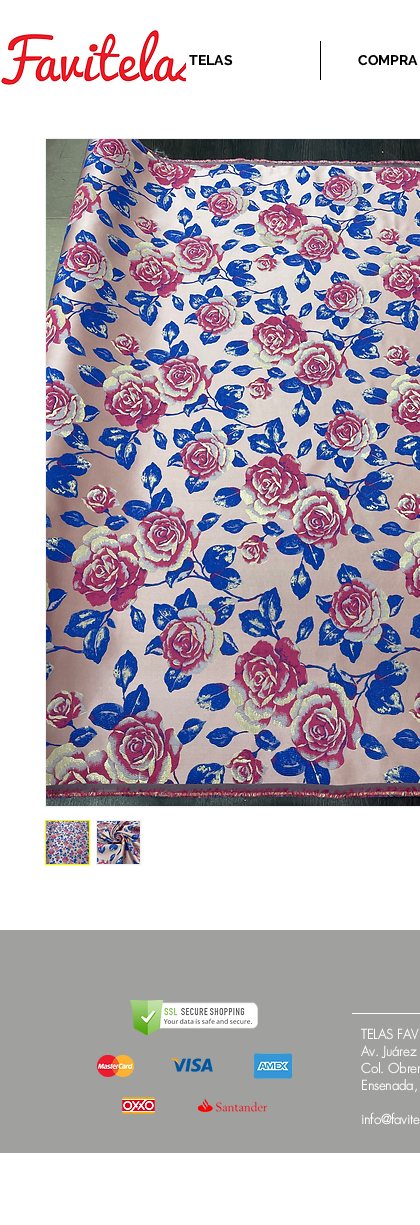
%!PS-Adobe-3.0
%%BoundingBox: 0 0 420 1225
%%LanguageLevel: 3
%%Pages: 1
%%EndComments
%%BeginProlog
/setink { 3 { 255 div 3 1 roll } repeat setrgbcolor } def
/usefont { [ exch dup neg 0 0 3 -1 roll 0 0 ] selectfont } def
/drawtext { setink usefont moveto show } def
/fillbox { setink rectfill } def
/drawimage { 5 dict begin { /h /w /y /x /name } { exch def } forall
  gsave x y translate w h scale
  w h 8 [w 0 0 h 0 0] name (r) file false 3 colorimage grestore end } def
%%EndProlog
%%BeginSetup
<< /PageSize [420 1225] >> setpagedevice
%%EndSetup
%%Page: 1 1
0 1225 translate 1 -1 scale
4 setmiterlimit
0 0 420 1225 255 255 255 fillbox
(assets/img1.rgb) 1 30 185 55 drawimage
(TELAS) 189 65 /Raleway-Bold 14 0 0 0 drawtext
320 41 1 39 0 0 0 fillbox
(COMPRA) 358 65 /Raleway-Bold 14 0 0 0 drawtext
236 240 241 setink
45.5 138.5 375 668 rectstroke
(assets/img2.rgb) 46 139 374 667 drawimage
243 247 16 setink
45.5 820.5 44 44 rectstroke
(assets/img3.rgb) 46 821 43 43 drawimage
236 240 241 setink
96.5 820.5 44 44 rectstroke
(assets/img4.rgb) 97 821 43 43 drawimage
0 930 420 223 160 160 159 fillbox
(assets/img5.rgb) 130 1000 128 35 drawimage
(assets/img6.rgb) 97 1055 37 22 drawimage
(assets/img7.rgb) 170 1058 43 14 drawimage
(assets/img8.rgb) 253 1053 40 26 drawimage
(assets/img9.rgb) 122 1097 33 17 drawimage
(assets/img10.rgb) 198 1098 69 15 drawimage
352 1013 68 1 255 255 255 fillbox
(TELAS FAV) 361 1039 /futura-Bold 13 255 255 254 drawtext
(Av. Juárez) 361 1056 /futura-Bold 13 255 255 254 drawtext
(Col. Obrer) 361 1073 /futura-Bold 13 255 255 254 drawtext
(Ensenada,) 361 1090 /futura-Bold 13 255 255 254 drawtext
(info@favite) 361 1124 /futura-Bold 13 255 255 254 drawtext
showpage
%%EOF
